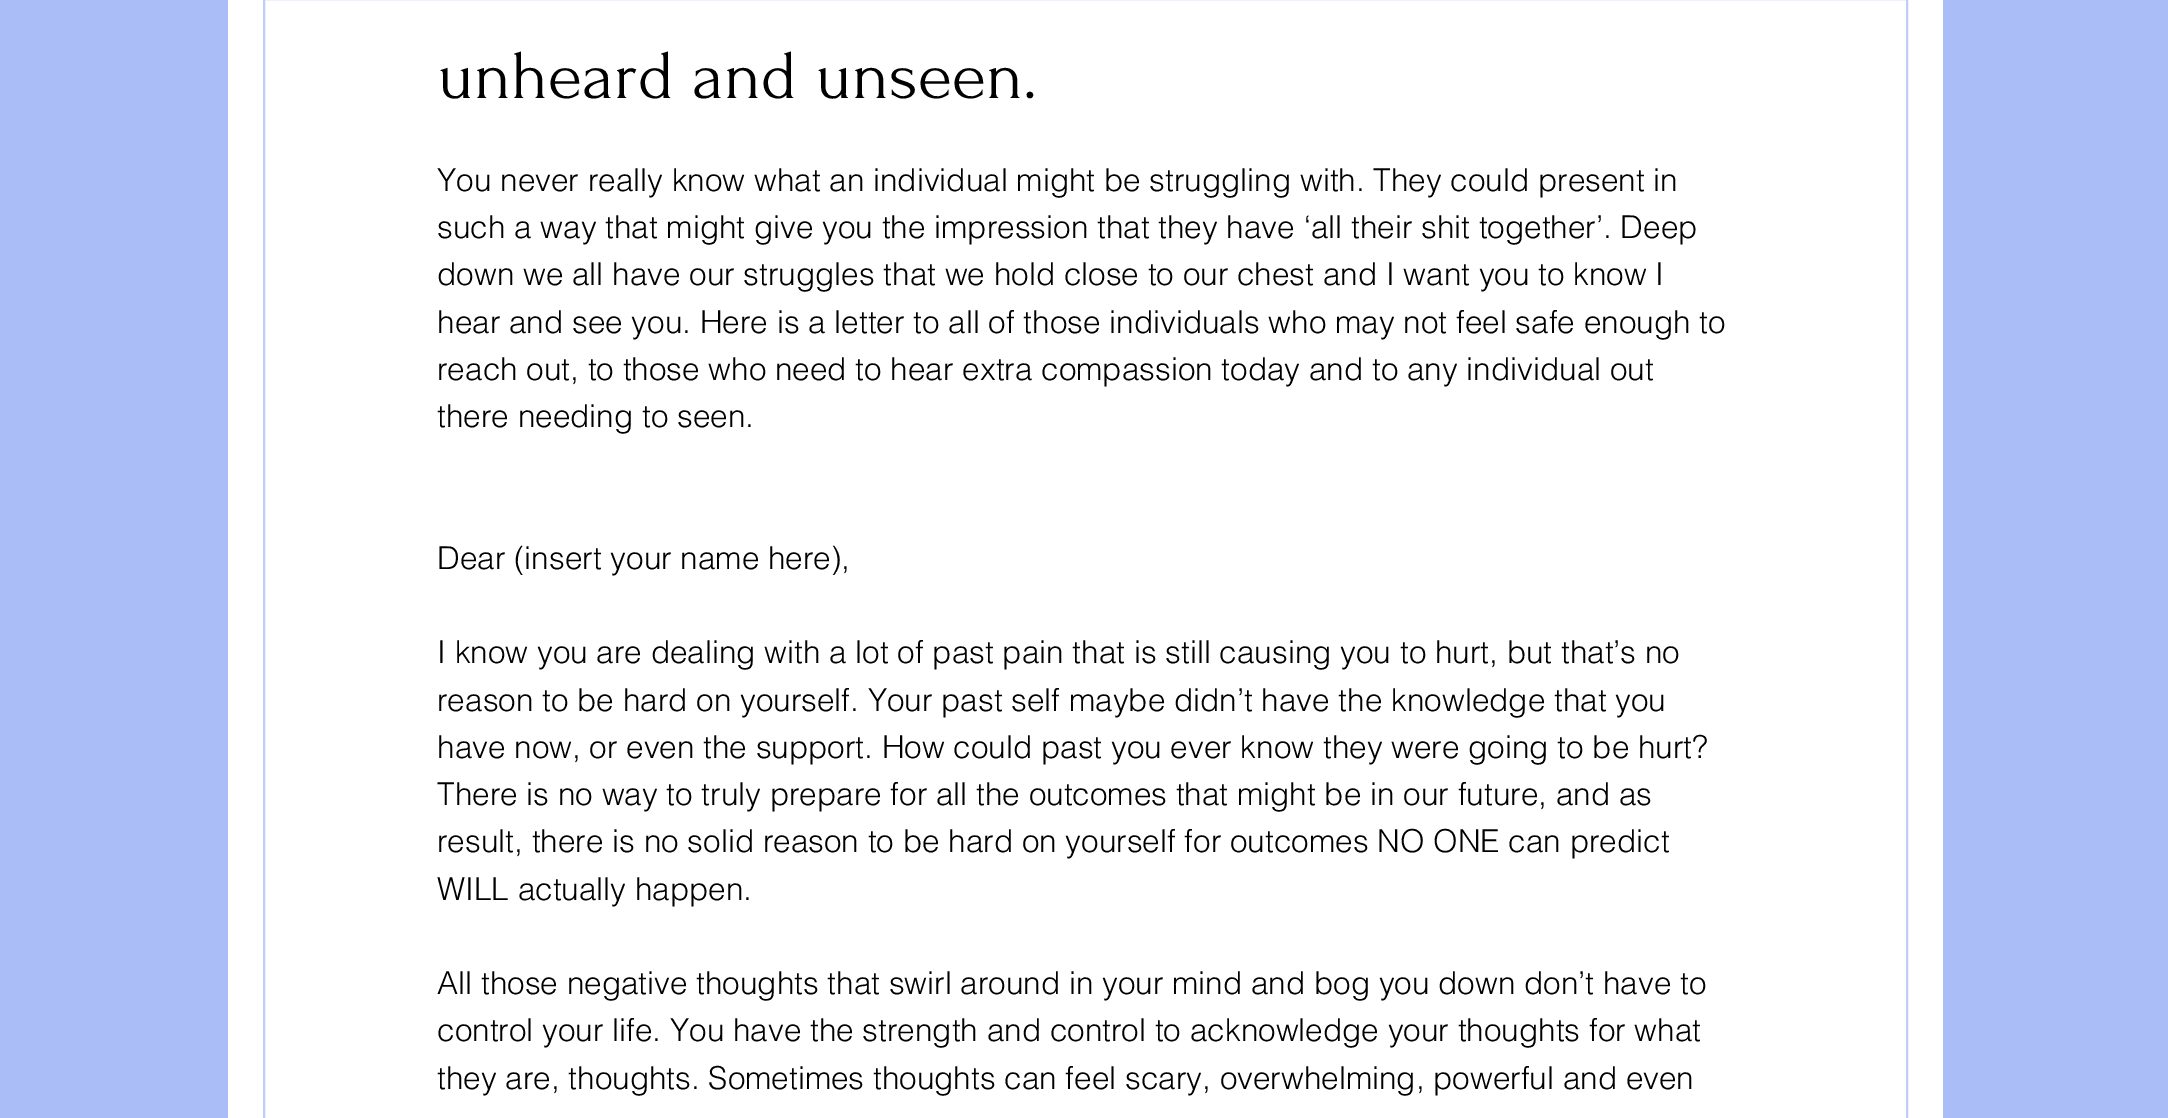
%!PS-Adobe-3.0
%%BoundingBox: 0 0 2168 1118
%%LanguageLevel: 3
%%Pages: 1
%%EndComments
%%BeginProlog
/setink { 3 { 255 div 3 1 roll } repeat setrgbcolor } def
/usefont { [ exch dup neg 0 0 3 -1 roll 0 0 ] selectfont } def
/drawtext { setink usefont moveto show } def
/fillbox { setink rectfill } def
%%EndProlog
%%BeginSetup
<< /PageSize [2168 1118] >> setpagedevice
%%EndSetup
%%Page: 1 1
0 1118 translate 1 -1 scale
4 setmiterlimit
0 0 2168 1118 170 189 246 fillbox
228 0 1715 1118 255 255 255 fillbox
191 206 248 setink
2 setlinewidth
264 -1 1643 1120 rectstroke
(unheard and unseen.) 437 98 /Forum-Regular 70 0 0 0 drawtext
(You never really know what an individual might be struggling with. They could present in) 437 191 /helvetica-Light 31.5 0 0 0 drawtext
(such a way that might give you the impression that they have ‘all their shit together’. Deep) 437 238 /helvetica-Light 31.5 0 0 0 drawtext
(down we all have our struggles that we hold close to our chest and I want you to know I) 437 285 /helvetica-Light 31.5 0 0 0 drawtext
(hear and see you. Here is a letter to all of those individuals who may not feel safe enough to) 437 333 /helvetica-Light 31.5 0 0 0 drawtext
(reach out, to those who need to hear extra compassion today and to any individual out) 437 380 /helvetica-Light 31.5 0 0 0 drawtext
(there needing to seen.) 437 427 /helvetica-Light 31.5 0 0 0 drawtext
(Dear \(insert your name here\),) 437 569 /helvetica-Light 31.5 0 0 0 drawtext
(I know you are dealing with a lot of past pain that is still causing you to hurt, but that’s no) 437 663 /helvetica-Light 31.5 0 0 0 drawtext
(reason to be hard on yourself. Your past self maybe didn’t have the knowledge that you) 437 711 /helvetica-Light 31.5 0 0 0 drawtext
(have now, or even the support. How could past you ever know they were going to be hurt?) 437 758 /helvetica-Light 31.5 0 0 0 drawtext
(There is no way to truly prepare for all the outcomes that might be in our future, and as) 437 805 /helvetica-Light 31.5 0 0 0 drawtext
(result, there is no solid reason to be hard on yourself for outcomes NO ONE can predict) 437 852 /helvetica-Light 31.5 0 0 0 drawtext
(WILL actually happen.) 437 900 /helvetica-Light 31.5 0 0 0 drawtext
(All those negative thoughts that swirl around in your mind and bog you down don’t have to) 437 994 /helvetica-Light 31.5 0 0 0 drawtext
(control your life. You have the strength and control to acknowledge your thoughts for what) 437 1041 /helvetica-Light 31.5 0 0 0 drawtext
(they are, thoughts. Sometimes thoughts can feel scary, overwhelming, powerful and even) 437 1089 /helvetica-Light 31.5 0 0 0 drawtext
showpage
%%EOF
